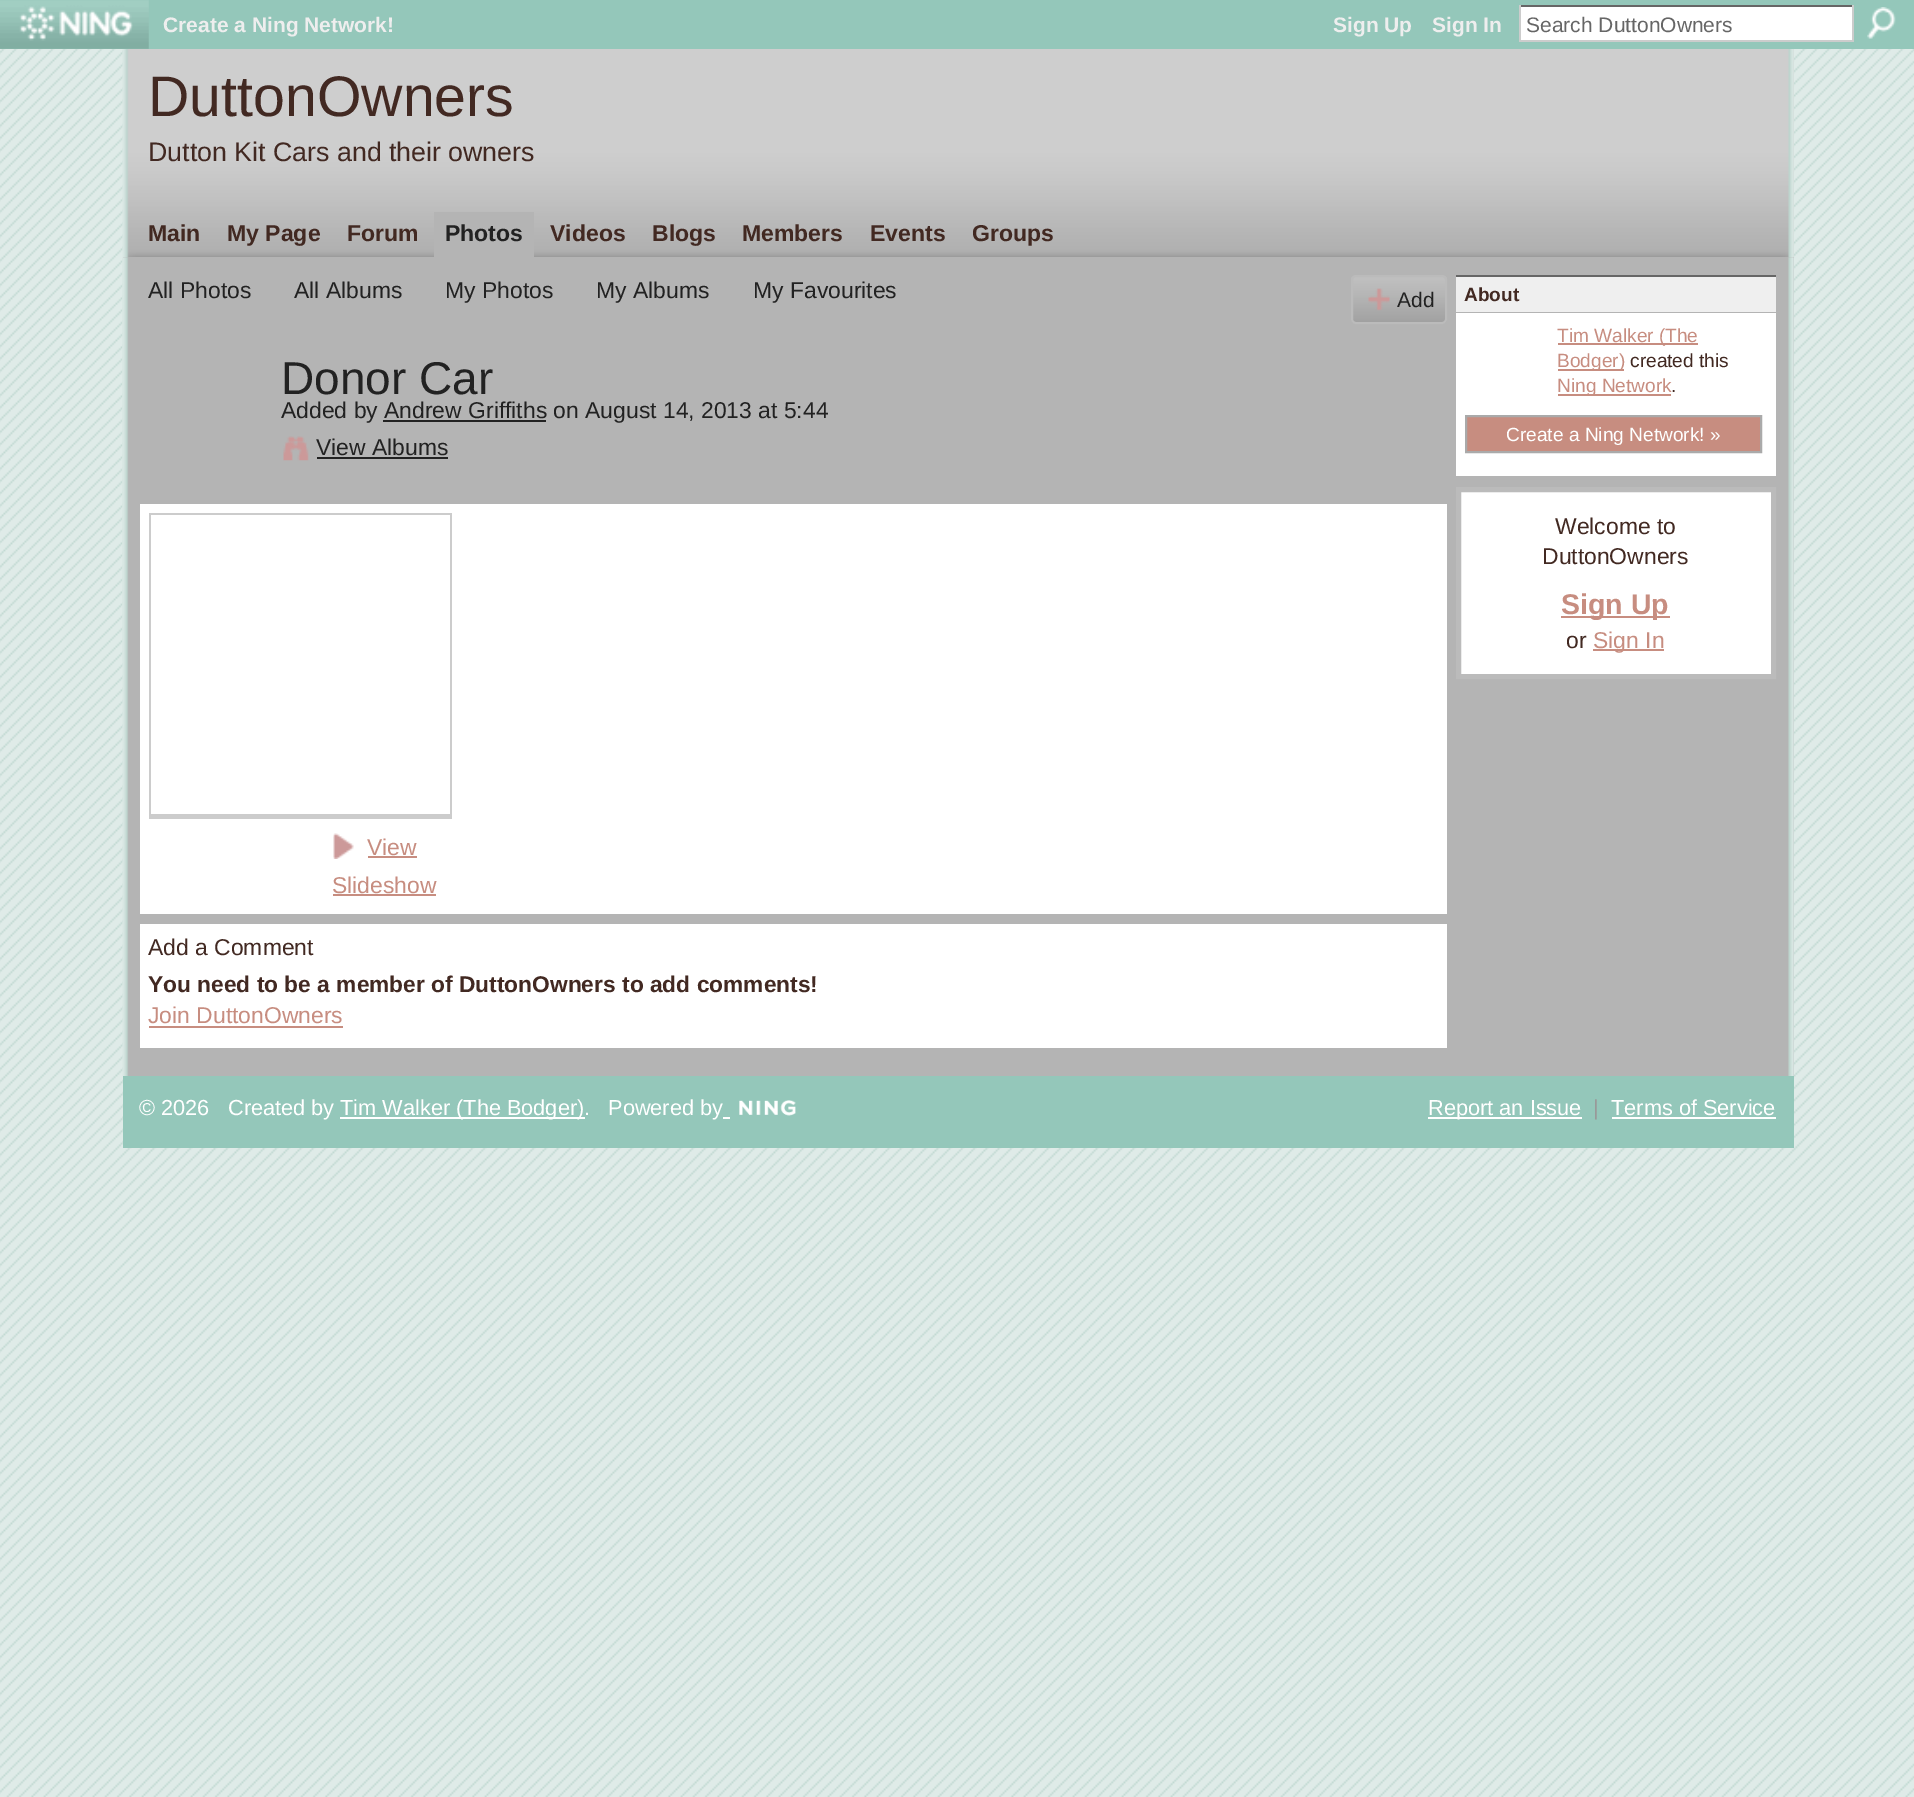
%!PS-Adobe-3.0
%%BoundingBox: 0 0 1914 1797
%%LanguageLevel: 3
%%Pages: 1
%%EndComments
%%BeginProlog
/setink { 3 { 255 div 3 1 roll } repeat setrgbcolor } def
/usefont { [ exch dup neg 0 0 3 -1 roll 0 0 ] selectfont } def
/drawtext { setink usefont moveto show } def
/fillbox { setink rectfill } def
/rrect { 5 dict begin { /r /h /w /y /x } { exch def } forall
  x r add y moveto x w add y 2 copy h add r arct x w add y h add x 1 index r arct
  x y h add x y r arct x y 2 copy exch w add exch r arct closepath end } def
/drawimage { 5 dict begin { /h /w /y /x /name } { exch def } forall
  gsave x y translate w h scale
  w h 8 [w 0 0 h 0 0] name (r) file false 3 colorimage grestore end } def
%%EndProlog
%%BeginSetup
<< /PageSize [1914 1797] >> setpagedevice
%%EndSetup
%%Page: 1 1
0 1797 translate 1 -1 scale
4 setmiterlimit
0 0 1914 1797 255 255 255 fillbox
(assets/img1.rgb) 0 49 1914 1748 drawimage
0 0 1914 49 148 199 186 fillbox
(assets/img2.rgb) 0 0 149 49 drawimage
(assets/img3.rgb) 19 6 114 35 drawimage
(Create a Ning Network!) 163 32 /LiberationSans-Bold 21 238 238 238 drawtext
(Sign Up) 1333 32 /LiberationSans-Bold 21 238 238 238 drawtext
(Sign In) 1432 32 /LiberationSans-Bold 21 238 238 238 drawtext
1521 7 331 33 255 255 255 fillbox
1519 5 334 2 102 102 102 fillbox
1852 5 2 37 204 204 204 fillbox
1519 40 334 2 204 204 204 fillbox
1519 5 2 37 204 204 204 fillbox
(Search DuttonOwners) 1526 32 /LiberationSans-Regular 21 102 102 102 drawtext
(assets/img4.rgb) 1867 7 29 32 drawimage
(assets/img5.rgb) 122 49 1672 613 drawimage
(DuttonOwners) 148 116 /LiberationSans-Regular 57.25 66 41 34 drawtext
(Dutton Kit Cars and their owners) 148 161 /LiberationSans-Regular 26.75 66 41 34 drawtext
(Main) 148 241 /LiberationSans-Bold 23 66 41 34 drawtext
(My Page) 227 241 /LiberationSans-Bold 23 66 41 34 drawtext
(Forum) 347 241 /LiberationSans-Bold 23 66 41 34 drawtext
434 212 100 45 180 180 180 fillbox
(Photos) 445 241 /LiberationSans-Bold 23 34 34 34 drawtext
(Videos) 550 241 /LiberationSans-Bold 23 66 41 34 drawtext
(Blogs) 652 241 /LiberationSans-Bold 23 66 41 34 drawtext
(Members) 742 241 /LiberationSans-Bold 23 66 41 34 drawtext
(Events) 870 241 /LiberationSans-Bold 23 66 41 34 drawtext
(Groups) 972 241 /LiberationSans-Bold 23 66 41 34 drawtext
123 257 1671 819 180 180 180 fillbox
(assets/img6.rgb) 122 257 1672 820 drawimage
(All Photos) 148 298 /LiberationSans-Regular 22.9 34 34 34 drawtext
(All Albums) 294 298 /LiberationSans-Regular 22.9 34 34 34 drawtext
(My Photos) 445 298 /LiberationSans-Regular 22.9 34 34 34 drawtext
(My Albums) 596 298 /LiberationSans-Regular 22.9 34 34 34 drawtext
(My Favourites) 753 298 /LiberationSans-Regular 22.9 34 34 34 drawtext
(assets/img7.rgb) 1351 276 96 48 drawimage
187 187 187 setink
2 setlinewidth
1352 276 94 47 4 rrect stroke
(assets/img8.rgb) 1368 288 22 23 drawimage
(Add) 1397 307 /LiberationSans-Regular 21 34 34 34 drawtext
(Donor Car) 281 394 /LiberationSans-Regular 46 34 34 34 drawtext
(Added by Andrew Griffiths on August 14, 2013 at 5:44) 281 418 /LiberationSans-Regular 22.9 34 34 34 drawtext
383 420 163 2 34 34 34 fillbox
(assets/img9.rgb) 283 436 26 25 drawimage
(View Albums) 316 455 /LiberationSans-Regular 22.9 34 34 34 drawtext
317 457 131 2 34 34 34 fillbox
140 504 1307 410 255 255 255 fillbox
149 513 303 2 204 204 204 fillbox
450 513 2 306 204 204 204 fillbox
149 814 303 5 204 204 204 fillbox
149 513 2 306 204 204 204 fillbox
(assets/img10.rgb) 333 833 21 26 drawimage
(View) 367 855 /LiberationSans-Regular 22.9 199 141 128 drawtext
368 856 49 2 199 141 128 fillbox
(Slideshow) 332 893 /LiberationSans-Regular 22.9 199 141 128 drawtext
333 894 103 2 199 141 128 fillbox
140 924 1307 124 255 255 255 fillbox
(Add a Comment) 148 955 /LiberationSans-Regular 22.9 66 41 34 drawtext
(You need to be a member of DuttonOwners to add comments!) 148 992 /LiberationSans-Bold 22.75 66 41 34 drawtext
(Join DuttonOwners) 148 1023 /LiberationSans-Regular 22.9 199 141 128 drawtext
149 1026 194 2 199 141 128 fillbox
1456 277 320 35 239 239 239 fillbox
1456 275 320 2 102 102 102 fillbox
(About) 1464 301 /LiberationSans-Bold 19.1 66 41 34 drawtext
1456 313 320 163 255 255 255 fillbox
1558 343 140 2 199 141 128 fillbox
(Tim Walker \(The) 1557 342 /LiberationSans-Regular 19.1 199 141 128 drawtext
1558 369 66 2 199 141 128 fillbox
(Bodger\)) 1557 367 /LiberationSans-Regular 19.1 199 141 128 drawtext
(created this) 1630 367 /LiberationSans-Regular 19.1 66 41 34 drawtext
1558 394 113 2 199 141 128 fillbox
(Ning Network) 1557 392 /LiberationSans-Regular 19.1 199 141 128 drawtext
(.) 1671 392 /LiberationSans-Regular 19.1 66 41 34 drawtext
199 141 128 setink
1466 416 moveto 1761 416 lineto 1761 452 lineto 1466 452 lineto closepath gsave fill grestore
170 170 170 setink
stroke
(Create a Ning Network! ») 1506 441 /LiberationSans-Regular 19.1 255 255 255 drawtext
1458.5 489.5 moveto 1773.5 489.5 lineto 1773.5 676.5 lineto 1458.5 676.5 lineto closepath gsave fill grestore
187 187 187 setink
5 setlinewidth
stroke
(Welcome to) 1555 534 /LiberationSans-Regular 22.9 66 41 34 drawtext
(DuttonOwners) 1542 564 /LiberationSans-Regular 22.9 66 41 34 drawtext
1561 616 109 2 199 141 128 fillbox
(Sign Up) 1561 614 /LiberationSans-Bold 28.5 199 141 128 drawtext
(or) 1566 648 /LiberationSans-Regular 22.9 66 41 34 drawtext
1593 649 71 2 199 141 128 fillbox
(Sign In) 1593 648 /LiberationSans-Regular 22.9 199 141 128 drawtext
123 1076 1671 72 148 199 186 fillbox
(© 2026) 139 1115 /LiberationSans-Regular 21.75 255 255 255 drawtext
(Created by) 228 1115 /LiberationSans-Regular 21.75 255 255 255 drawtext
340 1117 245 2 255 255 255 fillbox
(Tim Walker \(The Bodger\).) 340 1115 /LiberationSans-Regular 21.75 255 255 255 drawtext
(Powered by) 608 1115 /LiberationSans-Regular 21.75 255 255 255 drawtext
(assets/img11.rgb) 739 1100 57 16 drawimage
723 1117 7 2 255 255 255 fillbox
1428 1117 154 2 255 255 255 fillbox
(Report an Issue) 1428 1115 /LiberationSans-Regular 21.75 255 255 255 drawtext
(|) 1593 1115 /LiberationSans-Regular 21.75 153 153 153 drawtext
(Terms of Service) 1611 1115 /LiberationSans-Regular 21.75 255 255 255 drawtext
1612 1117 164 2 255 255 255 fillbox
showpage
%%EOF
